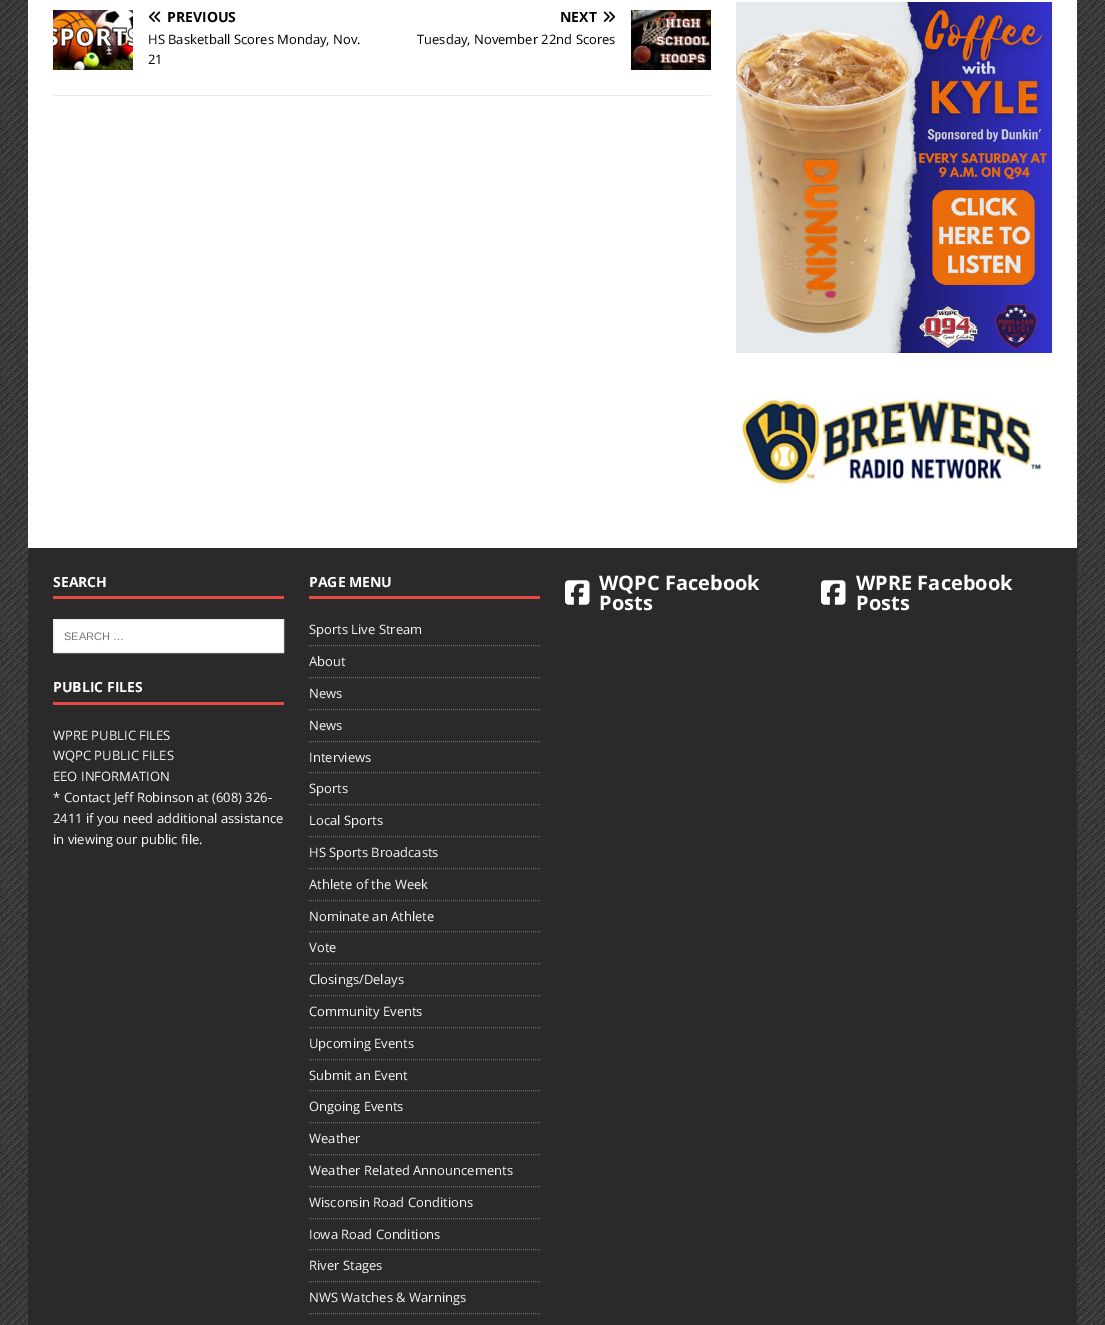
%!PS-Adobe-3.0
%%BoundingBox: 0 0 1105 1325
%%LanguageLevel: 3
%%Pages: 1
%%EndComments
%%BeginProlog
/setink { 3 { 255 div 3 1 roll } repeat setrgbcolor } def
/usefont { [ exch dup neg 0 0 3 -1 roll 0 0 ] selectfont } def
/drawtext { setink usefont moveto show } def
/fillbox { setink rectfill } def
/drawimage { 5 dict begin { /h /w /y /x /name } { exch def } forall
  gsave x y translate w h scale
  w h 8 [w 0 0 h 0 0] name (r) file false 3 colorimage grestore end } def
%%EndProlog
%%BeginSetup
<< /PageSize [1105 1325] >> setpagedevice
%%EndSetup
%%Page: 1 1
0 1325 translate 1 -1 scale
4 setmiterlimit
0 0 1105 1325 255 255 255 fillbox
(assets/img1.rgb) 0 0 1105 1325 drawimage
28 0 1049 548 255 255 255 fillbox
53 95 658 1 235 235 235 fillbox
(assets/img2.rgb) 53 10 80 60 drawimage
(assets/img3.rgb) 148 11 13 11 drawimage
(PREVIOUS) 167 22 /OpenSans-Bold 14 0 0 0 drawtext
(HS Basketball Scores Monday, Nov.) 148 44 /OpenSans-Regular 13 0 0 0 drawtext
(21) 148 64 /OpenSans-Regular 13 0 0 0 drawtext
(NEXT) 560 22 /OpenSans-Bold 14 0 0 0 drawtext
(assets/img4.rgb) 603 11 13 11 drawimage
(assets/img5.rgb) 631 10 80 60 drawimage
(Tuesday, November 22nd Scores) 417 44 /OpenSans-Regular 13 0 0 0 drawtext
(assets/img6.rgb) 736 2 316 351 drawimage
(assets/img7.rgb) 736 394 307 94 drawimage
28 548 1049 777 42 42 42 fillbox
53 596 231 3 230 73 70 fillbox
(SEARCH) 53 587 /OpenSans-Bold 14 255 255 255 drawtext
53.5 619.5 moveto 283.5 619.5 lineto 283.5 652.5 lineto 53.5 652.5 lineto closepath gsave fill grestore
235 235 235 setink
stroke
(SEARCH …) 64 640 /LiberationSans-Regular 11 117 117 117 drawtext
53 702 231 3 230 73 70 fillbox
(PUBLIC FILES) 53 692 /OpenSans-Bold 14 255 255 255 drawtext
(WPRE PUBLIC FILES) 53 740 /OpenSans-Regular 13 247 247 247 drawtext
(WQPC PUBLIC FILES) 53 760 /OpenSans-Regular 13 247 247 247 drawtext
(EEO INFORMATION) 53 781 /OpenSans-Regular 13 247 247 247 drawtext
(* Contact Jeff Robinson at \(608\) 326-) 53 802 /OpenSans-Regular 13 255 255 255 drawtext
(2411 if you need additional assistance) 53 823 /OpenSans-Regular 13 255 255 255 drawtext
(in viewing our public file.) 53 844 /OpenSans-Regular 13 255 255 255 drawtext
309 596 231 3 230 73 70 fillbox
(PAGE MENU) 309 587 /OpenSans-Bold 14 255 255 255 drawtext
106 106 106 setink
[1 1] 0 setdash
309 645.5 moveto 540 645.5 lineto stroke
(Sports Live Stream) 309 634 /OpenSans-Regular 13 247 247 247 drawtext
106 106 106 setink
309 677.5 moveto 540 677.5 lineto stroke
(About) 309 666 /OpenSans-Regular 13 247 247 247 drawtext
106 106 106 setink
309 772.5 moveto 540 772.5 lineto stroke
(News) 309 698 /OpenSans-Regular 13 247 247 247 drawtext
106 106 106 setink
309 709.5 moveto 540 709.5 lineto stroke
(News) 309 730 /OpenSans-Regular 13 247 247 247 drawtext
106 106 106 setink
309 741.5 moveto 540 741.5 lineto stroke
(Interviews) 309 762 /OpenSans-Regular 13 247 247 247 drawtext
106 106 106 setink
309 963.5 moveto 540 963.5 lineto stroke
(Sports) 309 793 /OpenSans-Regular 13 247 247 247 drawtext
106 106 106 setink
309 804.5 moveto 540 804.5 lineto stroke
(Local Sports) 309 825 /OpenSans-Regular 13 247 247 247 drawtext
106 106 106 setink
309 836.5 moveto 540 836.5 lineto stroke
(HS Sports Broadcasts) 309 857 /OpenSans-Regular 13 247 247 247 drawtext
106 106 106 setink
309 868.5 moveto 540 868.5 lineto stroke
(Athlete of the Week) 309 889 /OpenSans-Regular 13 247 247 247 drawtext
106 106 106 setink
309 900.5 moveto 540 900.5 lineto stroke
(Nominate an Athlete) 309 921 /OpenSans-Regular 13 247 247 247 drawtext
106 106 106 setink
309 931.5 moveto 540 931.5 lineto stroke
(Vote) 309 952 /OpenSans-Regular 13 247 247 247 drawtext
106 106 106 setink
309 995.5 moveto 540 995.5 lineto stroke
(Closings/Delays) 309 984 /OpenSans-Regular 13 247 247 247 drawtext
106 106 106 setink
309 1122.5 moveto 540 1122.5 lineto stroke
(Community Events) 309 1016 /OpenSans-Regular 13 247 247 247 drawtext
106 106 106 setink
309 1027.5 moveto 540 1027.5 lineto stroke
(Upcoming Events) 309 1048 /OpenSans-Regular 13 247 247 247 drawtext
106 106 106 setink
309 1059.5 moveto 540 1059.5 lineto stroke
(Submit an Event) 309 1080 /OpenSans-Regular 13 247 247 247 drawtext
106 106 106 setink
309 1090.5 moveto 540 1090.5 lineto stroke
(Ongoing Events) 309 1111 /OpenSans-Regular 13 247 247 247 drawtext
106 106 106 setink
309 1313.5 moveto 540 1313.5 lineto stroke
(Weather) 309 1143 /OpenSans-Regular 13 247 247 247 drawtext
106 106 106 setink
309 1154.5 moveto 540 1154.5 lineto stroke
(Weather Related Announcements) 309 1175 /OpenSans-Regular 13 247 247 247 drawtext
106 106 106 setink
309 1186.5 moveto 540 1186.5 lineto stroke
(Wisconsin Road Conditions) 309 1207 /OpenSans-Regular 13 247 247 247 drawtext
106 106 106 setink
309 1218.5 moveto 540 1218.5 lineto stroke
(Iowa Road Conditions) 309 1239 /OpenSans-Regular 13 247 247 247 drawtext
106 106 106 setink
309 1249.5 moveto 540 1249.5 lineto stroke
(River Stages) 309 1270 /OpenSans-Regular 13 247 247 247 drawtext
106 106 106 setink
309 1281.5 moveto 540 1281.5 lineto stroke
(NWS Watches & Warnings) 309 1302 /OpenSans-Regular 13 247 247 247 drawtext
(assets/img8.rgb) 565 580 25 25 drawimage
(WQPC Facebook) 599 590 /OpenSans-Bold 20 255 255 255 drawtext
(Posts) 599 610 /OpenSans-Bold 20 255 255 255 drawtext
(assets/img8.rgb) 821 580 25 25 drawimage
(WPRE Facebook) 856 590 /OpenSans-Bold 20 255 255 255 drawtext
(Posts) 856 610 /OpenSans-Bold 20 255 255 255 drawtext
showpage
%%EOF
